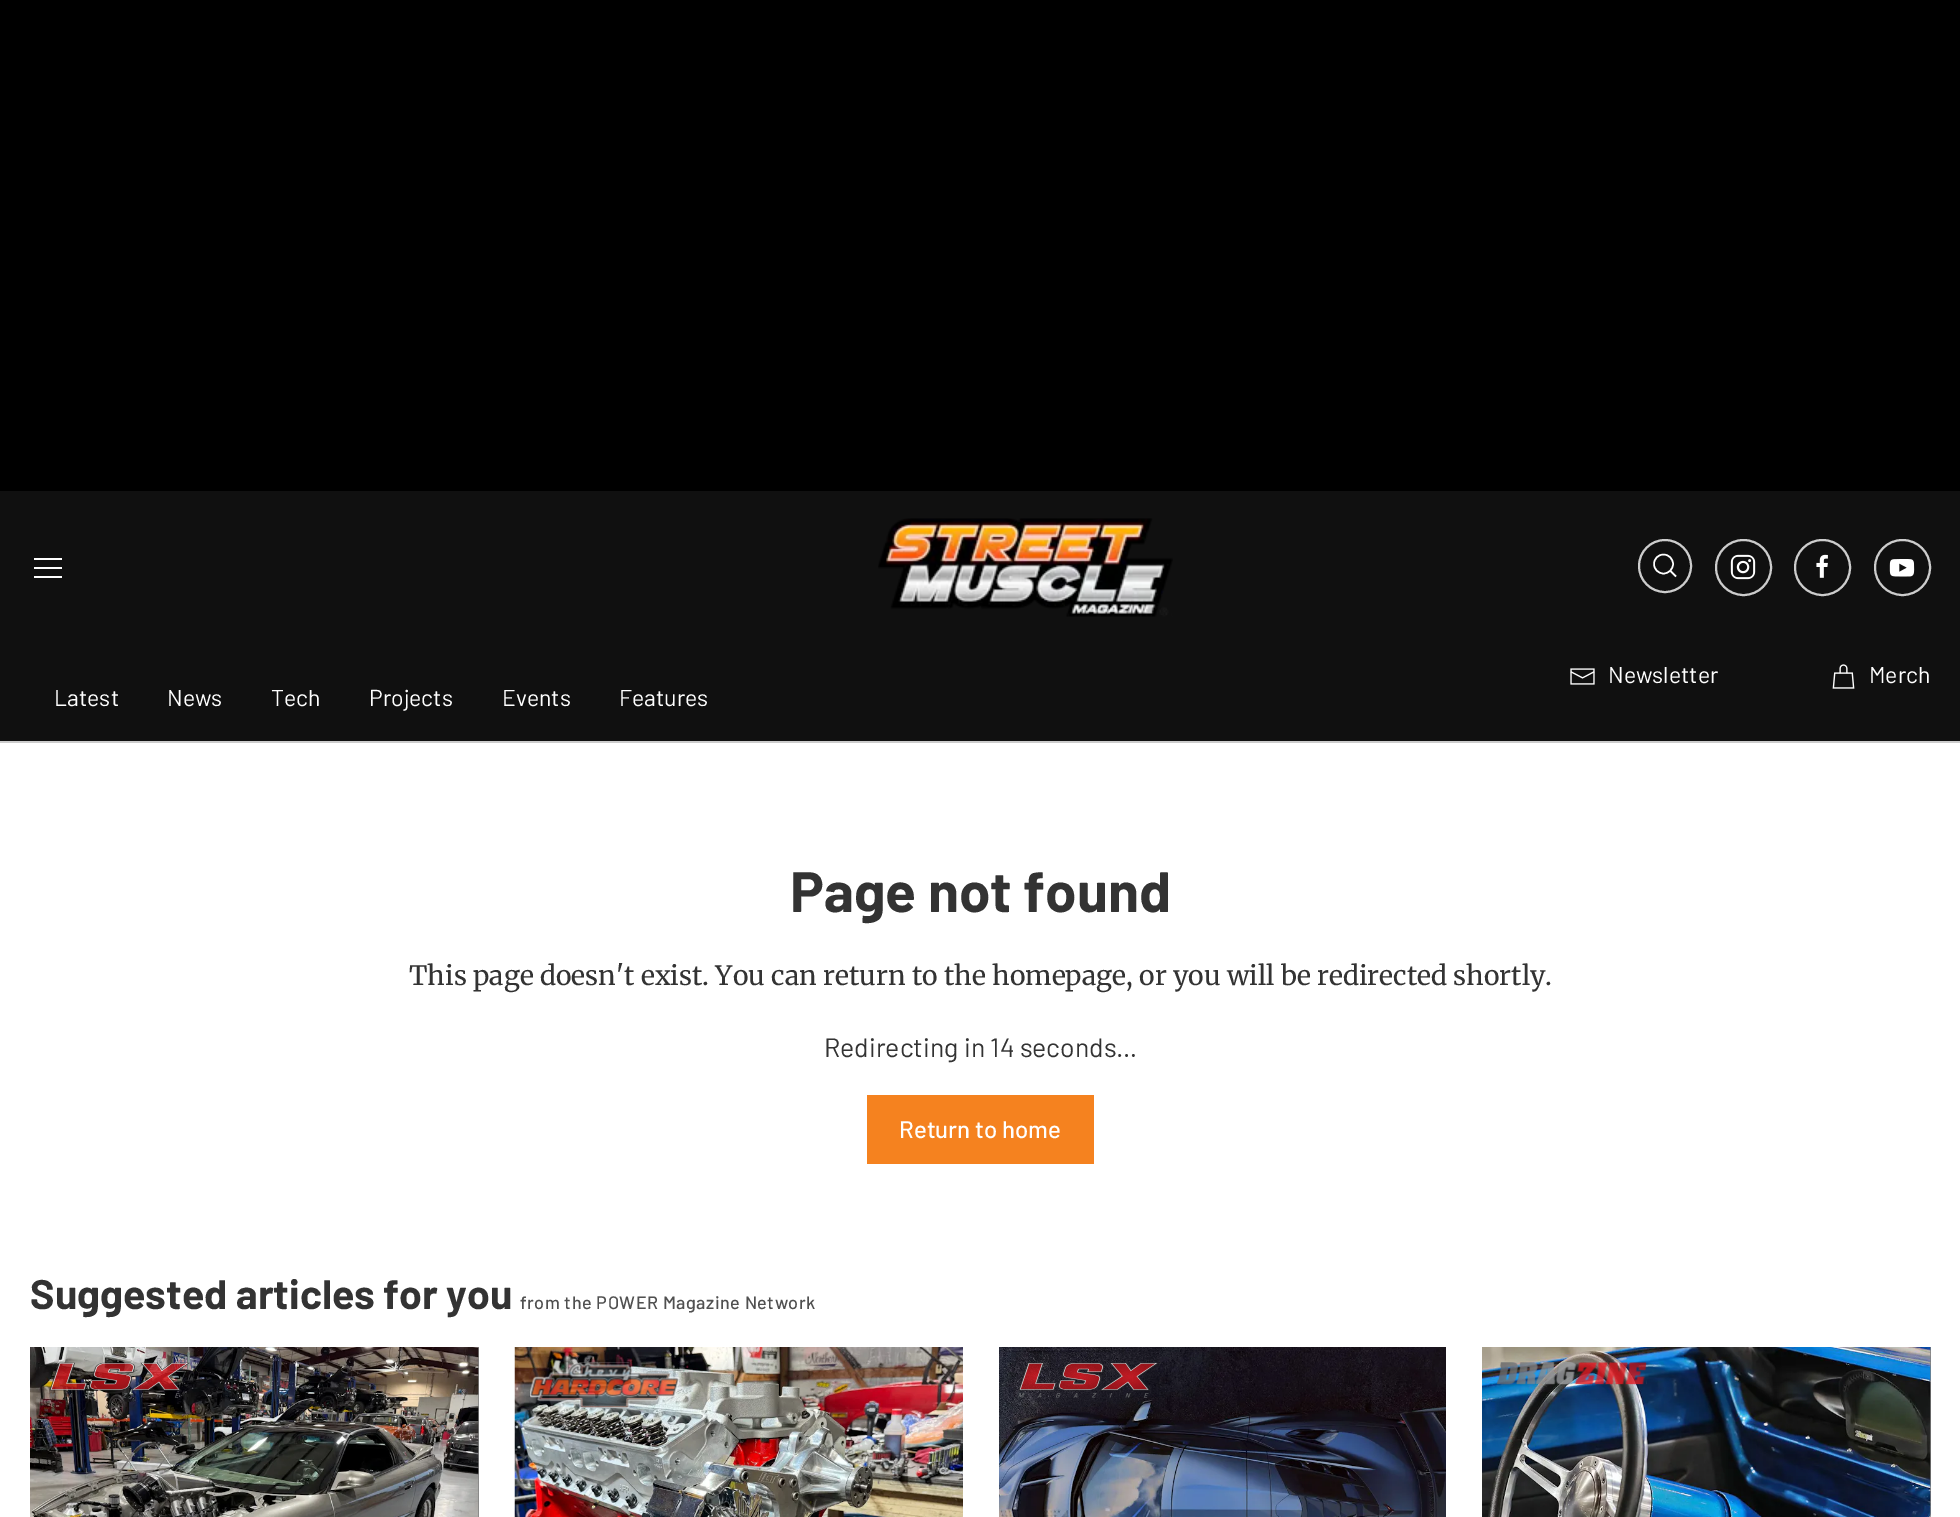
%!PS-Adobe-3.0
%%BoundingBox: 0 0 1960 1517
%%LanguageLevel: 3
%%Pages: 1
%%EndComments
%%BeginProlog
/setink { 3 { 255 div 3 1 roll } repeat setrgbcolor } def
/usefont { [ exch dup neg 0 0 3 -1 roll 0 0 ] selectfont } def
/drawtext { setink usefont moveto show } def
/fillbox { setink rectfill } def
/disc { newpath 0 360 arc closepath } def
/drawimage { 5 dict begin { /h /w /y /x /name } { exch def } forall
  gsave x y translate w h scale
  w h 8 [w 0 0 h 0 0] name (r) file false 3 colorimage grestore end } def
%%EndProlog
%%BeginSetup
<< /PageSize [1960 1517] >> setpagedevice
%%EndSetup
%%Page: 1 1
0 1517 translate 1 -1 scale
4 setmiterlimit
0 0 1960 1517 255 255 255 fillbox
0 0 1960 491 0 0 0 fillbox
0 491 1960 250 16 16 16 fillbox
0 741 1960 2 204 204 204 fillbox
2 setlinewidth
1665 566 26 disc stroke
255 255 255 setink
1.5 setlinewidth
1663.5 564 9.5 disc stroke
1670.5 571 moveto 1676 576.5 lineto closepath stroke
204 204 204 setink
2 setlinewidth
1743.5 567.5 27.5 disc stroke
(assets/img1.rgb) 1730 554 26 26 drawimage
1822.5 567.5 27.5 disc stroke
(assets/img2.rgb) 1816 554 12 24 drawimage
1902.5 567.5 27.5 disc stroke
(assets/img3.rgb) 1889 559 26 18 drawimage
(assets/img4.rgb) 1570 668 25 17 drawimage
(Newsletter) 1608 683 /Barlow-Regular 23 255 255 255 drawtext
(assets/img5.rgb) 1832 664 23 25 drawimage
(Merch) 1869 683 /Barlow-Regular 23 255 255 255 drawtext
34 558 28 2 255 255 255 fillbox
34 567 28 2 255 255 255 fillbox
34 576 28 2 255 255 255 fillbox
(assets/img6.rgb) 878 518 295 99 drawimage
(Latest) 54 706 /Barlow-Regular 23 255 255 255 drawtext
(News) 167 706 /Barlow-Regular 23 255 255 255 drawtext
(Tech) 271 706 /Barlow-Regular 23 255 255 255 drawtext
(Projects) 369 706 /Barlow-Regular 23 255 255 255 drawtext
(Events) 502 706 /Barlow-Regular 23 255 255 255 drawtext
(Features) 619 706 /Barlow-Regular 23 255 255 255 drawtext
(Page not found) 790 912 /Barlow-Bold 56.75 51 51 51 drawtext
(This page doesn't exist. You can return to the homepage, or you will be redirected shortly.) 409 985 /Merriweather-Regular 26.6 51 51 51 drawtext
(Redirecting in 14 seconds…) 824 1057 /Barlow-Regular 26.6 51 51 51 drawtext
867 1095 227 69 245 130 31 fillbox
(Return to home) 899 1138 /Barlow-Medium 24 255 255 255 drawtext
(Suggested articles for you) 30 1309 /Barlow-Bold 41.25 51 51 51 drawtext
/Barlow-Medium 18 usefont
80 80 80 setink
520 1309 moveto 0.55 0 (from the POWER Magazine Network) ashow
478 1347 1 170 128 128 128 fillbox
(assets/img7.rgb) 30 1347 449 170 drawimage
(assets/img8.rgb) 49 1362 141 36 drawimage
(assets/img9.rgb) 514 1347 449 170 drawimage
(assets/img10.rgb) 530 1362 149 46 drawimage
(assets/img11.rgb) 999 1347 447 170 drawimage
(assets/img12.rgb) 1018 1362 141 36 drawimage
1930 1347 1 170 128 128 128 fillbox
(assets/img13.rgb) 1482 1347 449 170 drawimage
(assets/img14.rgb) 1497 1362 150 23 drawimage
showpage
%%EOF
